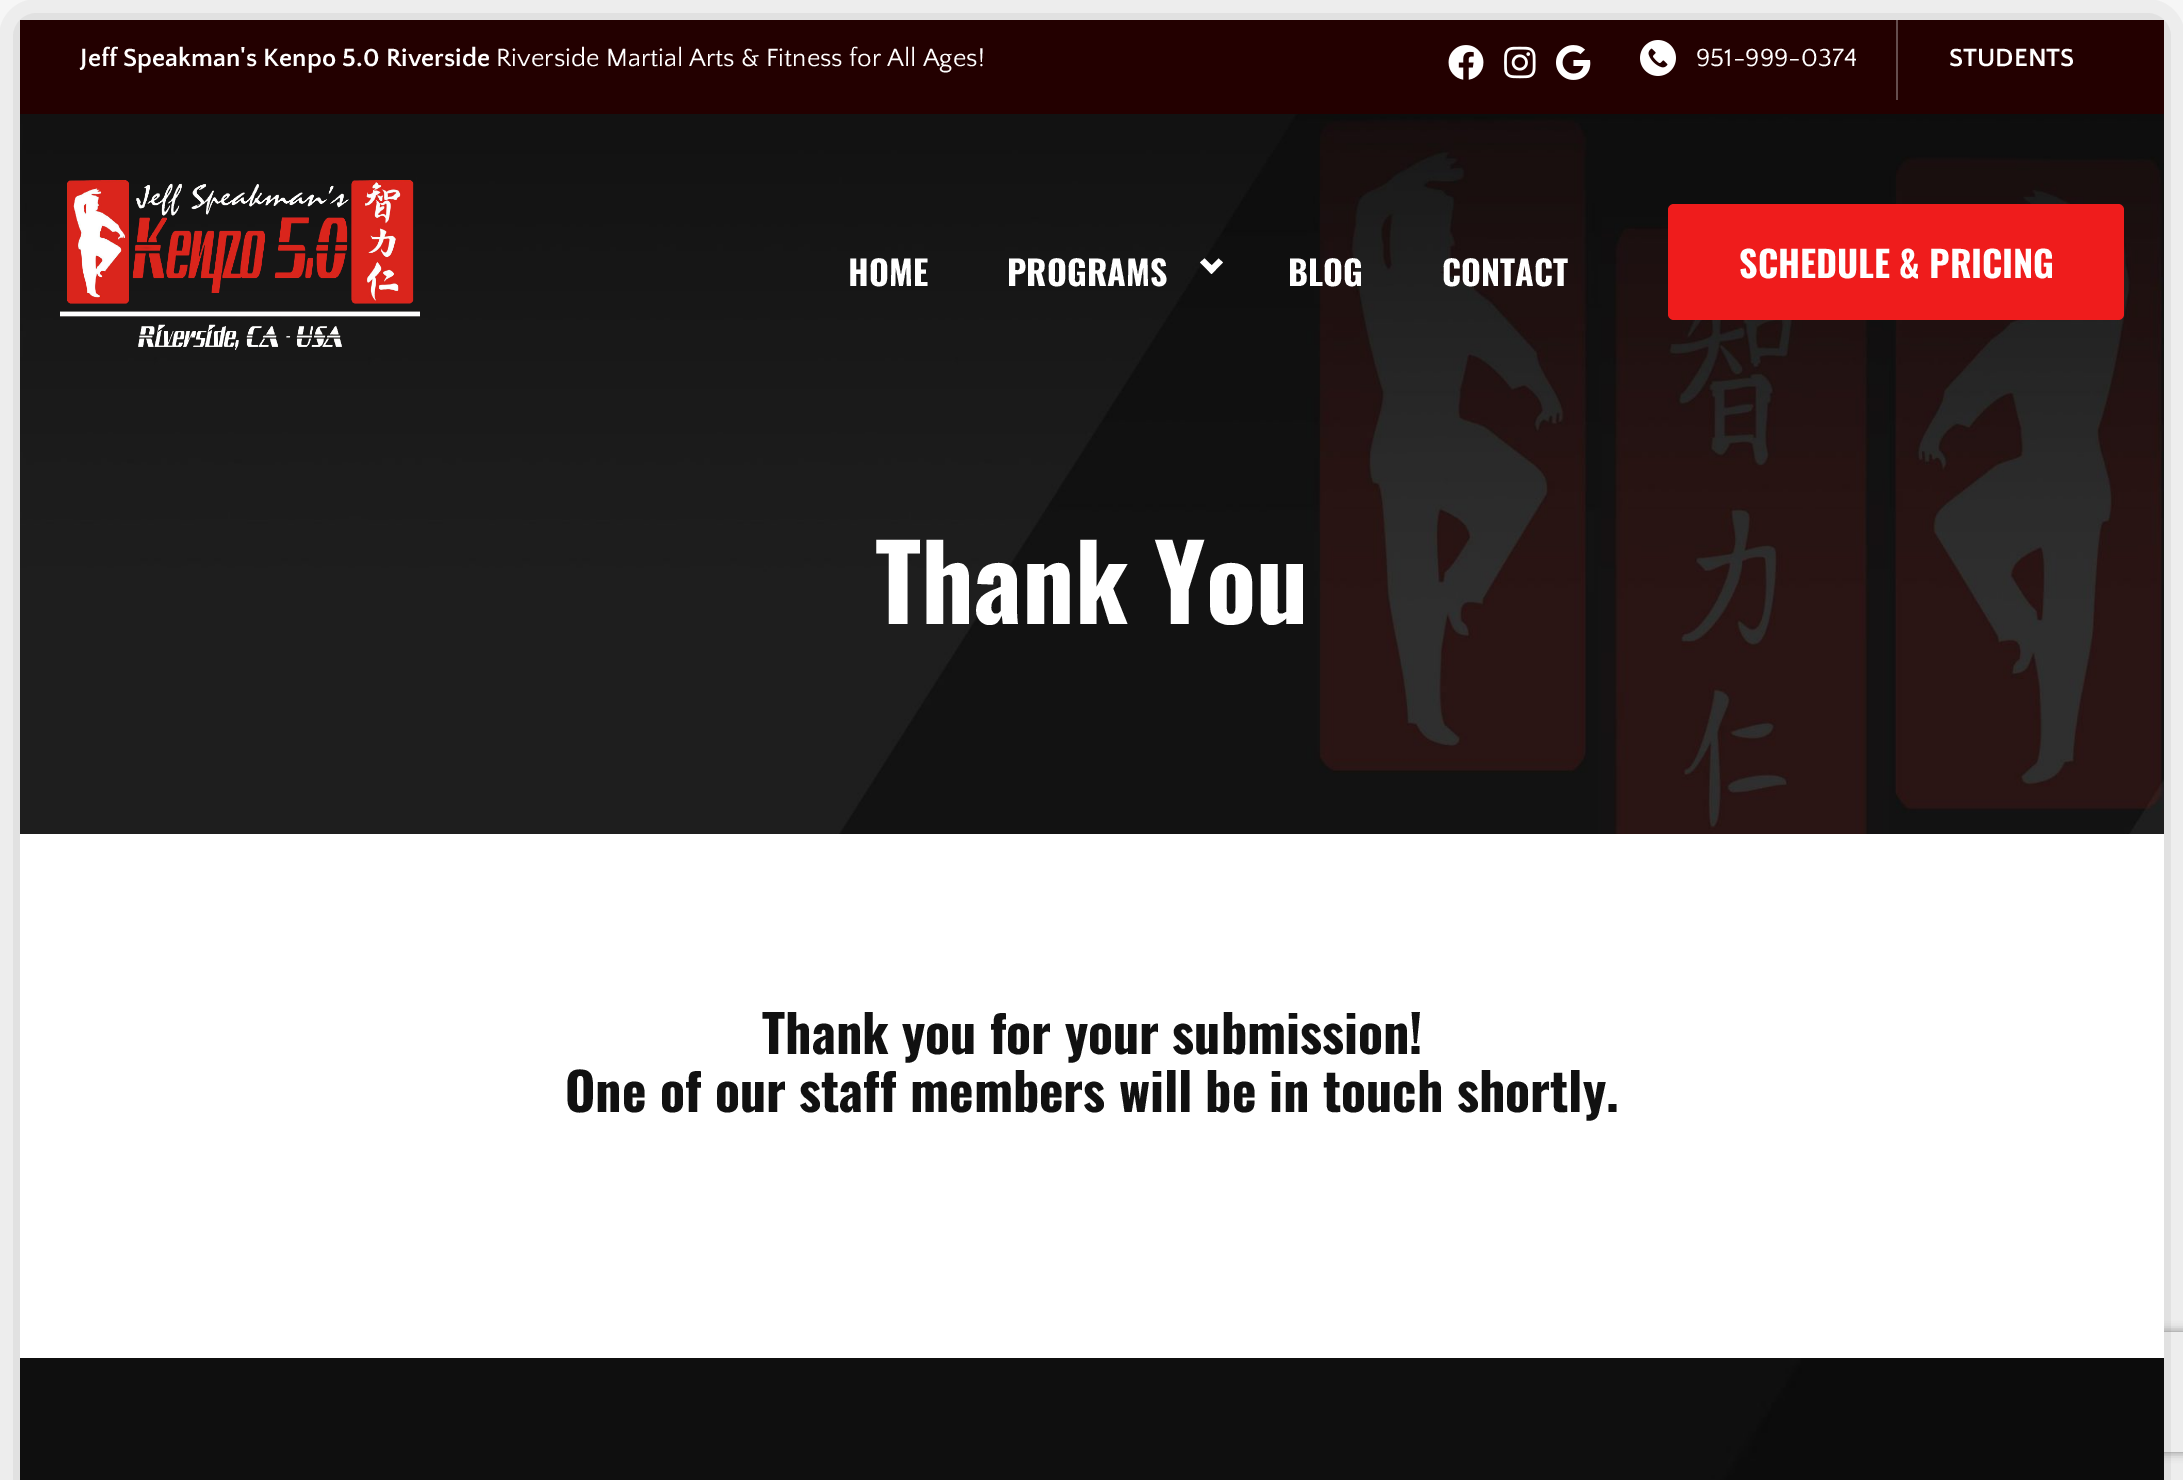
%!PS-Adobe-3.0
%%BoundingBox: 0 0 2183 1480
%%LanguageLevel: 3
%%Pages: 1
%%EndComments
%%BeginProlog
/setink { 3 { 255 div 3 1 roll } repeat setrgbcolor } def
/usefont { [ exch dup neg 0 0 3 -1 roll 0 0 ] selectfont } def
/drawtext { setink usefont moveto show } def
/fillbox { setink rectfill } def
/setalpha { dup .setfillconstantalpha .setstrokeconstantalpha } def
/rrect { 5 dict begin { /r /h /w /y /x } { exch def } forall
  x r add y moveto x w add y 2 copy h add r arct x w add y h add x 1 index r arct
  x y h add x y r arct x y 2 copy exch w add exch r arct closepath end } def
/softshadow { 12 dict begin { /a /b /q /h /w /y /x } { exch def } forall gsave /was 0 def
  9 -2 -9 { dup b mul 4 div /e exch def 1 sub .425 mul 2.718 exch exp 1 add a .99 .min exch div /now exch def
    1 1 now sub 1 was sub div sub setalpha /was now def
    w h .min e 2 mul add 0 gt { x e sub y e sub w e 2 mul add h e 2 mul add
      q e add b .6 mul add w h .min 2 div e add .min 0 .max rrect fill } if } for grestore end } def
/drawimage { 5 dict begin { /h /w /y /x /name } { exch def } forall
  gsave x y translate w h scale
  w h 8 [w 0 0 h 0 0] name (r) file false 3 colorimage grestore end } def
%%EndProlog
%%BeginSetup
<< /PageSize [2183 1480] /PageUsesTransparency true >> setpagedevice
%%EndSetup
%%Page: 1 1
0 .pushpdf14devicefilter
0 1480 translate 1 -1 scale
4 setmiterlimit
0 0 2183 1480 255 255 255 fillbox
0 0 0 setink
20 20 2144 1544 0 28 0.24 softshadow
gsave
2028 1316 moveto 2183 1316 lineto 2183 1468 lineto 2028 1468 lineto closepath 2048 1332 moveto 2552 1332 lineto 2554 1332 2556 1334 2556 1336 curveto 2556 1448 lineto 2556 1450 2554 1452 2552 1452 curveto 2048 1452 lineto 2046 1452 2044 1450 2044 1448 curveto 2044 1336 lineto 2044 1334 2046 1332 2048 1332 curveto closepath eoclip newpath
128 128 128 setink
2044 1332 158 120 4 5 1 softshadow
grestore
20 834 2144 524 255 255 255 fillbox
20 20 2144 94 35 0 0 fillbox
(Jeff Speakman's Kenpo 5.0 Riverside) 80 66 /QuattrocentoSans-Bold 26 255 255 255 drawtext
(Riverside Martial Arts & Fitness for All Ages!) 496 66 /QuattrocentoSans-Regular 26 255 255 255 drawtext
(assets/img1.rgb) 1448 45 36 35 drawimage
(assets/img2.rgb) 1504 46 32 33 drawimage
(assets/img3.rgb) 1556 45 35 35 drawimage
(assets/img4.rgb) 1640 40 36 36 drawimage
(951-999-0374) 1696 66 /QuattrocentoSans-Regular 26 255 255 255 drawtext
1896 20 2 80 101 77 77 fillbox
(STUDENTS) 1949 66 /QuattrocentoSans-Bold 26 255 255 255 drawtext
(assets/img6.rgb) 20 114 2144 720 drawimage
(assets/img5.rgb) 60 180 360 170 drawimage
(HOME) 848 286 /Oswald-Bold 34 255 255 255 drawtext
(PROGRAMS) 1007 286 /Oswald-Bold 34 255 255 255 drawtext
1218.5 258.5 moveto 1223 262.5 lineto 1211.5 274 lineto 1207.5 269.5 lineto closepath fill
1204.5 258.5 moveto 1216 269.5 lineto 1211.5 274 lineto 1200 262.5 lineto closepath fill
(BLOG) 1288 286 /Oswald-Bold 34 255 255 255 drawtext
(CONTACT) 1442 286 /Oswald-Bold 34 255 255 255 drawtext
239 28 28 setink
1668 204 456 116 6 rrect fill
(SCHEDULE & PRICING) 1739 278 /Oswald-Bold 36 255 255 255 drawtext
(Thank You) 875 624 /Oswald-Bold 104 255 255 255 drawtext
(Thank you for your submission!) 762 1054 /Oswald-Bold 52 17 17 17 drawtext
(One of our staff members will be in touch shortly.) 565 1112 /Oswald-Bold 52 17 17 17 drawtext
(assets/img7.rgb) 20 1358 2144 122 drawimage
.poppdf14devicefilter showpage
%%EOF
